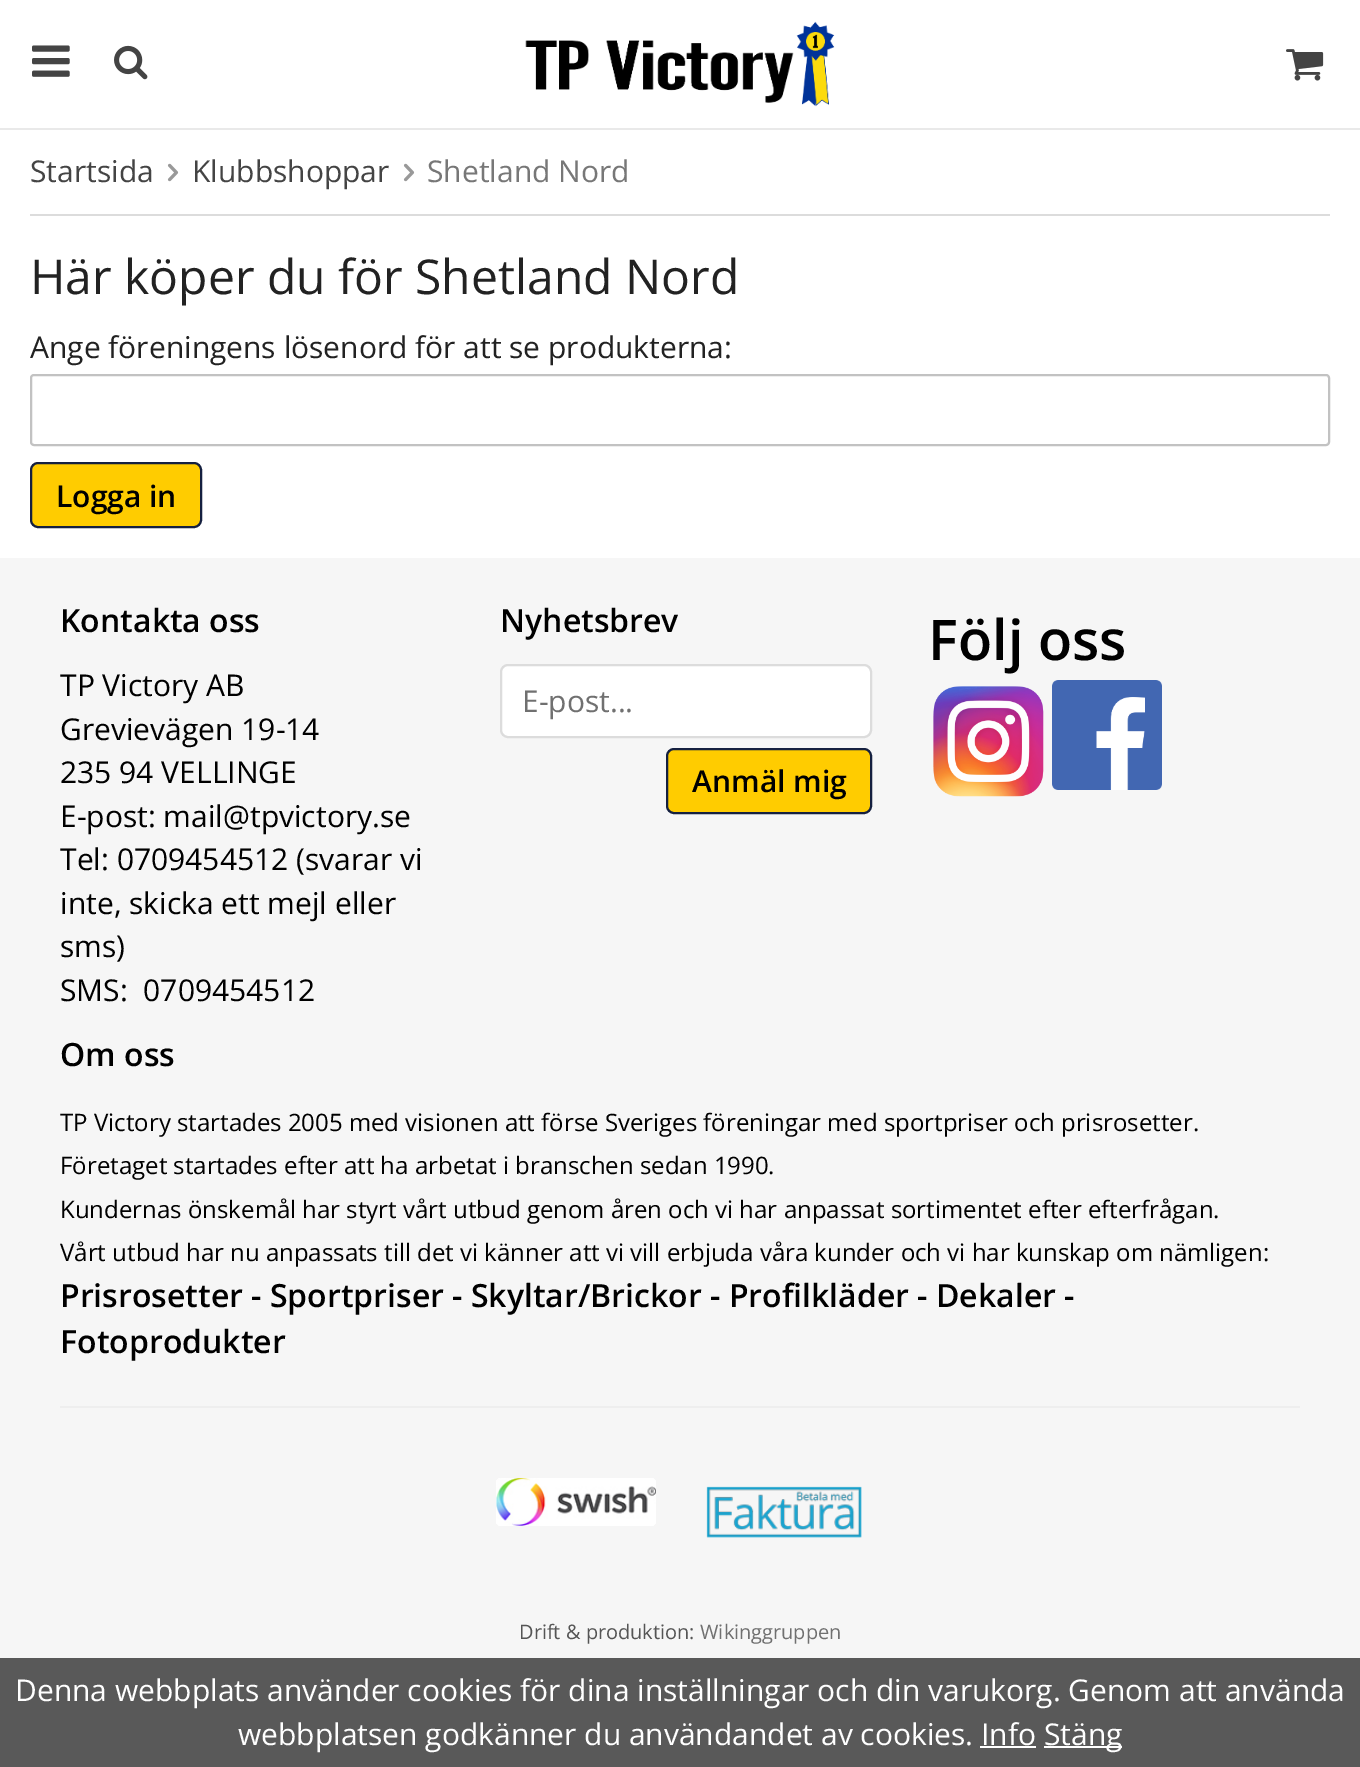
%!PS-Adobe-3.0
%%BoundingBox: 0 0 1360 1767
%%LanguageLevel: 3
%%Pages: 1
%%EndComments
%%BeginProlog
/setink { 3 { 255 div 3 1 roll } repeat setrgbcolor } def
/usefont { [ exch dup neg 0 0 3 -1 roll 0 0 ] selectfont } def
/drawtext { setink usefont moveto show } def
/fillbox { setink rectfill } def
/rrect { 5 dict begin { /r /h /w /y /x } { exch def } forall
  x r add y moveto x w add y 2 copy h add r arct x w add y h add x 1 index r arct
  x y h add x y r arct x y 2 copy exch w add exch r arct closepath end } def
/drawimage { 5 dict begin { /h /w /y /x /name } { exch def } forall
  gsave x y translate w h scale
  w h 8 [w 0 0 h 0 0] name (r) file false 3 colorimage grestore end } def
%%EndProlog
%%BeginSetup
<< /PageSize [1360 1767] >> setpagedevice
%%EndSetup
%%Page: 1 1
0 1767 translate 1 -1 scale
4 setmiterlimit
0 0 1360 1767 255 255 255 fillbox
0 128 1360 2 233 233 233 fillbox
(assets/img1.rgb) 32 45 38 32 drawimage
(assets/img2.rgb) 114 45 34 35 drawimage
(assets/img3.rgb) 525 21 310 86 drawimage
(assets/img4.rgb) 1286 49 38 32 drawimage
30 214 1300 2 220 220 220 fillbox
(Startsida) 30 182 /OpenSans-Regular 30 68 68 68 drawtext
(assets/img5.rgb) 167 163 12 19 drawimage
(Klubbshoppar) 192 182 /OpenSans-Regular 30 68 68 68 drawtext
(assets/img5.rgb) 403 163 12 19 drawimage
(Shetland Nord) 427 182 /OpenSans-Regular 30 119 119 119 drawtext
(Här köper du för Shetland Nord) 30 294 /OpenSans-Regular 48 34 34 34 drawtext
(Ange föreningens lösenord för att se produkterna:) 30 358 /OpenSans-Regular 30 34 34 34 drawtext
194 194 194 setink
2 setlinewidth
31 375 1298 70 3 rrect stroke
255 204 0 setink
31 463 170 64 7 rrect gsave fill grestore
21 32 64 setink
stroke
(Logga in) 56 507 /OpenSans-SemiBold 30 0 0 0 drawtext
0 558 1360 1100 246 246 246 fillbox
(Kontakta oss) 60 632 /OpenSans-SemiBold 32 0 0 0 drawtext
(TP Victory AB) 60 696 /OpenSans-Regular 30 0 0 0 drawtext
(Grevievägen 19-14) 60 740 /OpenSans-Regular 30 0 0 0 drawtext
(235 94 VELLINGE) 60 783 /OpenSans-Regular 30 0 0 0 drawtext
(E-post: mail@tpvictory.se) 60 827 /OpenSans-Regular 30 0 0 0 drawtext
(Tel: 0709454512 \(svarar vi) 60 870 /OpenSans-Regular 30 0 0 0 drawtext
(inte, skicka ett mejl eller) 60 914 /OpenSans-Regular 30 0 0 0 drawtext
(sms\)) 60 957 /OpenSans-Regular 30 0 0 0 drawtext
(SMS:  0709454512) 60 1001 /OpenSans-Regular 30 0 0 0 drawtext
(Nyhetsbrev) 500 632 /OpenSans-SemiBold 32 0 0 0 drawtext
255 255 255 setink
501 665 370 72 7 rrect gsave fill grestore
220 220 220 setink
stroke
(E-post...) 522 712 /OpenSans-Regular 30 112 112 112 drawtext
255 204 0 setink
667 749 204 64 7 rrect gsave fill grestore
21 32 64 setink
stroke
(Anmäl mig) 692 792 /OpenSans-SemiBold 30 0 0 0 drawtext
(Följ oss) 928 660 /OpenSans-SemiBold 56 0 0 0 drawtext
(assets/img6.rgb) 933 686 111 111 drawimage
(assets/img7.rgb) 1052 680 110 110 drawimage
(Om oss) 60 1066 /OpenSans-SemiBold 32 0 0 0 drawtext
(TP Victory startades 2005 med visionen att förse Sveriges föreningar med sportpriser och prisrosetter.) 60 1131 /OpenSans-Regular 24 0 0 0 drawtext
(Företaget startades efter att ha arbetat i branschen sedan 1990.) 60 1174 /OpenSans-Regular 24 0 0 0 drawtext
(Kundernas önskemål har styrt vårt utbud genom åren och vi har anpassat sortimentet efter efterfrågan.) 60 1218 /OpenSans-Regular 24 0 0 0 drawtext
(Vårt utbud har nu anpassats till det vi känner att vi vill erbjuda våra kunder och vi har kunskap om nämligen:) 60 1261 /OpenSans-Regular 24 0 0 0 drawtext
(Prisrosetter - Sportpriser - Skyltar/Brickor - Profilkläder - Dekaler -) 60 1307 /OpenSans-SemiBold 32 0 0 0 drawtext
(Fotoprodukter) 60 1353 /OpenSans-SemiBold 32 0 0 0 drawtext
60 1406 1240 2 238 238 238 fillbox
(assets/img8.rgb) 496 1478 160 48 drawimage
(assets/img9.rgb) 706 1486 156 52 drawimage
(Drift & produktion:) 519 1639 /OpenSans-Regular 20 85 85 85 drawtext
(Wikinggruppen) 700 1639 /OpenSans-Regular 20 112 112 112 drawtext
0 1658 1360 109 89 89 89 fillbox
(Denna webbplats använder cookies för dina inställningar och din varukorg. Genom att använda) 15 1701 /OpenSans-Regular 30 255 255 255 drawtext
(webbplatsen godkänner du användandet av cookies. Info) 238 1745 /OpenSans-Regular 30 255 255 255 drawtext
1044 1746 78 2 255 255 255 fillbox
(Stäng) 1044 1745 /OpenSans-Regular 30 255 255 255 drawtext
980 1746 56 2 255 255 255 fillbox
showpage
%%EOF
